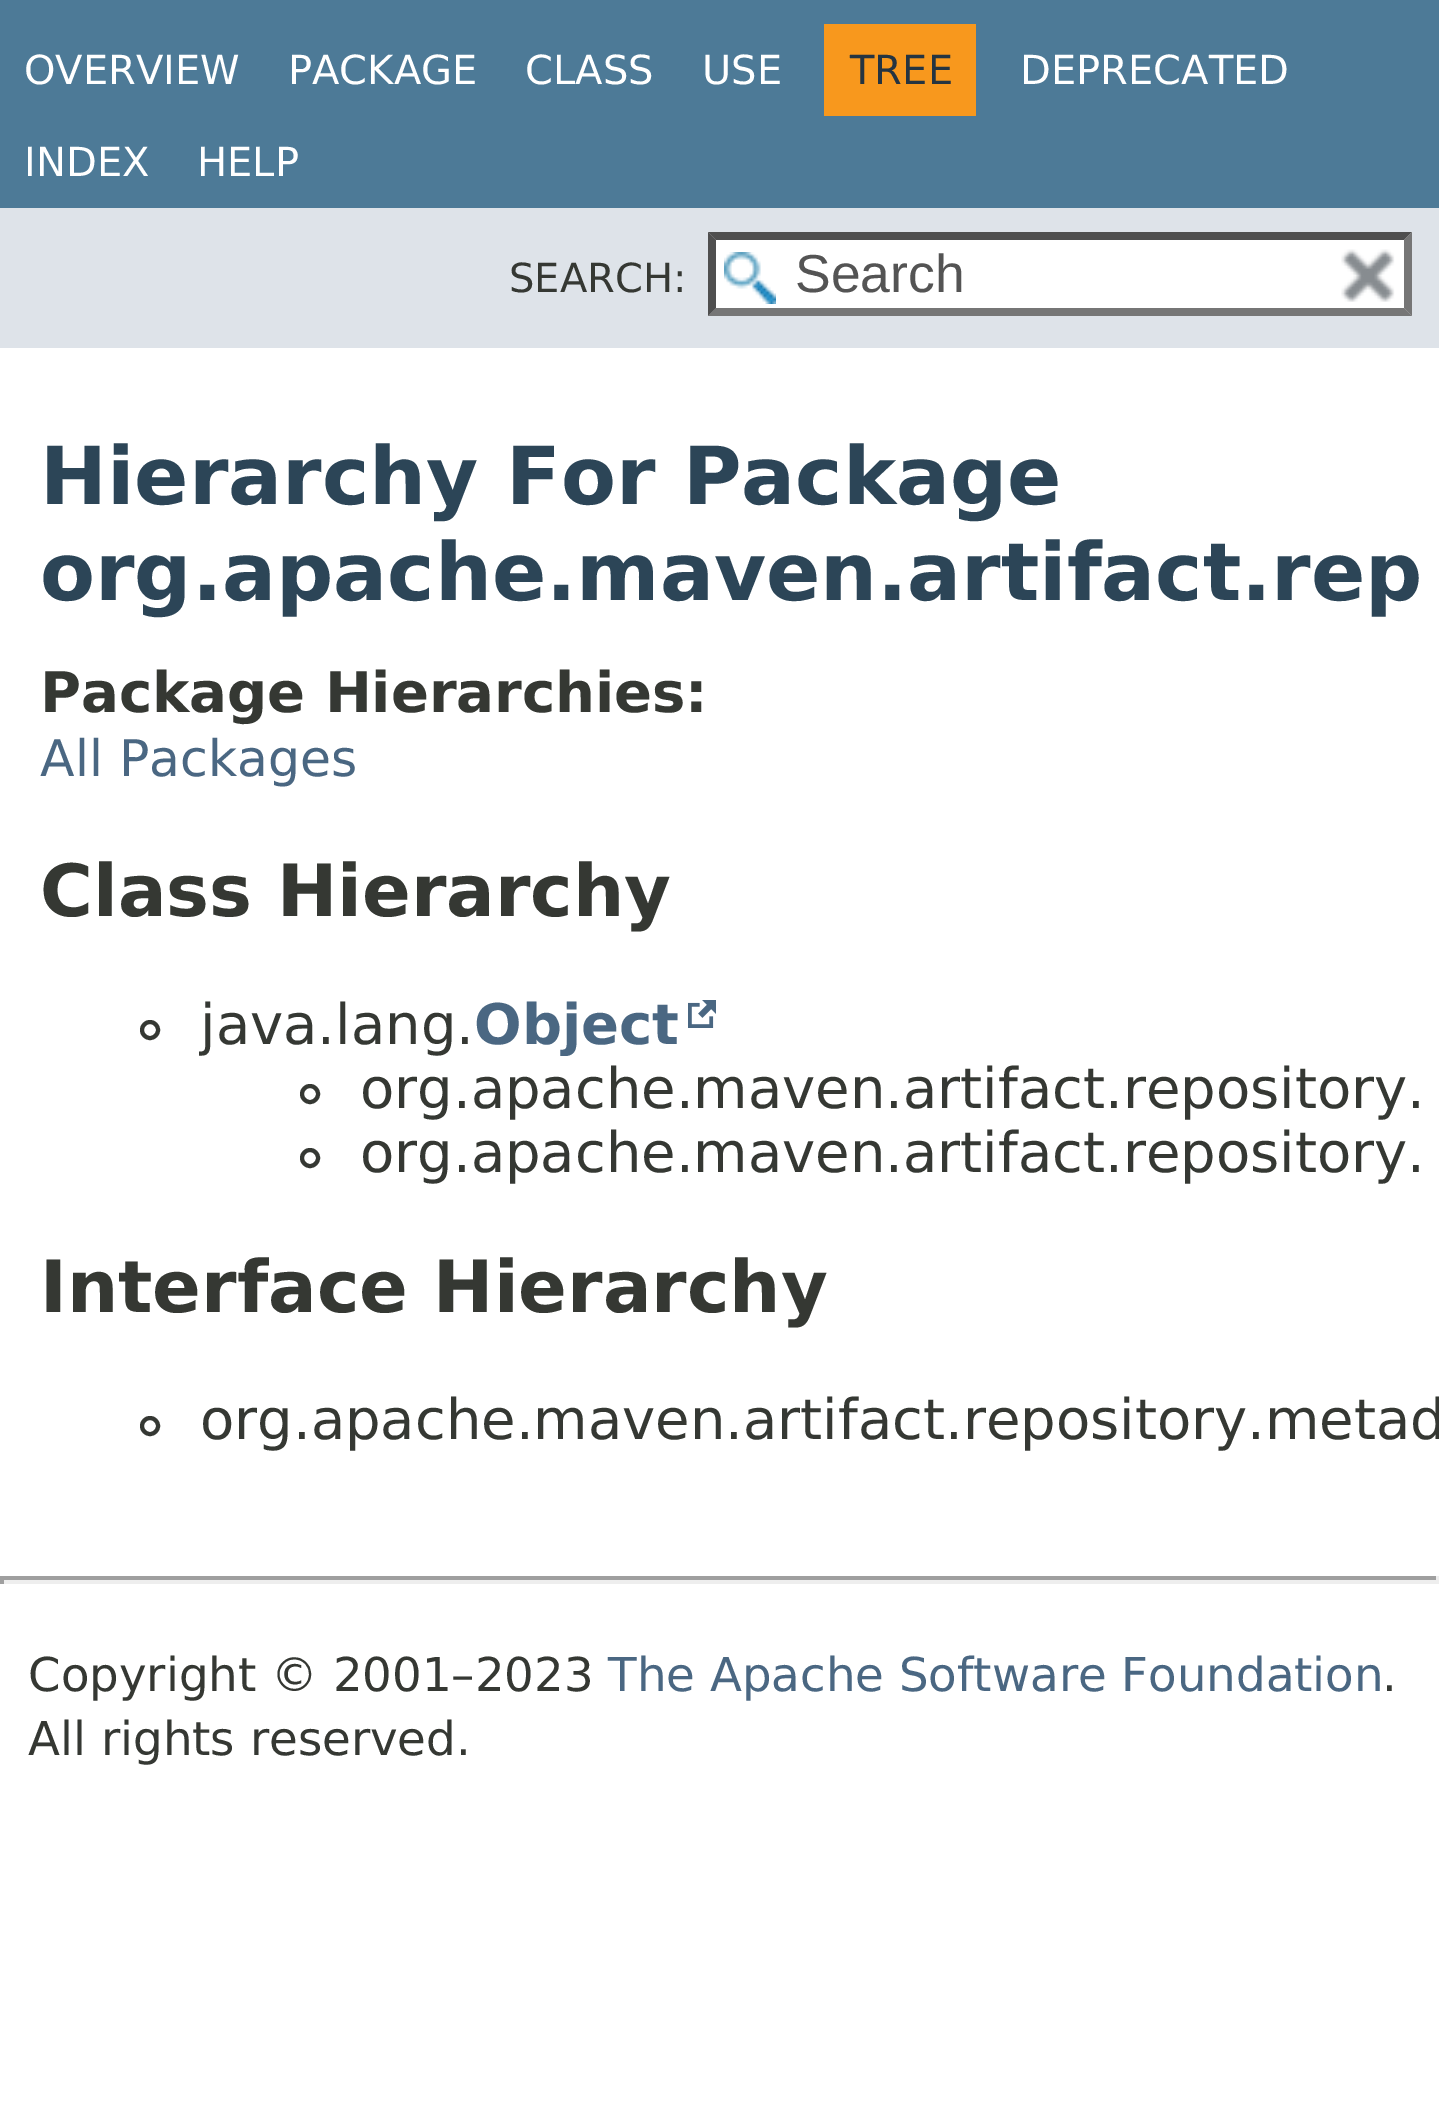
%!PS-Adobe-3.0
%%BoundingBox: 0 0 1439 2105
%%LanguageLevel: 3
%%Pages: 1
%%EndComments
%%BeginProlog
/setink { 3 { 255 div 3 1 roll } repeat setrgbcolor } def
/usefont { [ exch dup neg 0 0 3 -1 roll 0 0 ] selectfont } def
/drawtext { setink usefont moveto show } def
/fillbox { setink rectfill } def
/disc { newpath 0 360 arc closepath } def
/drawimage { 5 dict begin { /h /w /y /x /name } { exch def } forall
  gsave x y translate w h scale
  w h 8 [w 0 0 h 0 0] name (r) file false 3 colorimage grestore end } def
%%EndProlog
%%BeginSetup
<< /PageSize [1439 2105] >> setpagedevice
%%EndSetup
%%Page: 1 1
0 2105 translate 1 -1 scale
4 setmiterlimit
0 0 1439 2105 255 255 255 fillbox
0 0 1439 208 77 122 151 fillbox
(OVERVIEW) 24 84 /DejaVuSans-Regular 40 255 255 255 drawtext
(PACKAGE) 288 84 /DejaVuSans-Regular 40 255 255 255 drawtext
(CLASS) 525 84 /DejaVuSans-Regular 40 255 255 255 drawtext
(USE) 702 84 /DejaVuSans-Regular 40 255 255 255 drawtext
824 24 152 92 248 152 29 fillbox
(TREE) 850 84 /DejaVuSans-Regular 40 37 52 65 drawtext
(DEPRECATED) 1020 84 /DejaVuSans-Regular 40 255 255 255 drawtext
(INDEX) 24 176 /DejaVuSans-Regular 40 255 255 255 drawtext
(HELP) 197 176 /DejaVuSans-Regular 40 255 255 255 drawtext
0 208 1439 140 222 227 233 fillbox
(SEARCH:) 509 292 /DejaVuSans-Regular 40 53 56 51 drawtext
708 232 704 84 255 255 255 fillbox
(assets/img1.rgb) 724 252 52 52 drawimage
79 79 79 setink
708 232 moveto 1412 232 lineto 1404 240 lineto 716 240 lineto closepath fill
118 118 118 setink
1412 232 moveto 1412 316 lineto 1404 308 lineto 1404 240 lineto closepath fill
1412 316 moveto 708 316 lineto 716 308 lineto 1404 308 lineto closepath fill
79 79 79 setink
708 316 moveto 708 232 lineto 716 240 lineto 716 308 lineto closepath fill
(Search) 795 292 /LiberationSans-Regular 53.5 84 84 84 drawtext
(assets/img2.rgb) 1341 249 54 53 drawimage
(Hierarchy For Package) 40 504 /DejaVuSans-Bold 80 44 69 87 drawtext
(org.apache.maven.artifact.rep) 40 600 /DejaVuSans-Bold 80 44 69 87 drawtext
(Package Hierarchies:) 40 712 /DejaVuSans-Bold 56 53 56 51 drawtext
(All Packages) 40 776 /DejaVuSans-Regular 50.5 74 103 130 drawtext
(Class Hierarchy) 40 916 /DejaVuSans-Bold 72 53 56 51 drawtext
4 setlinewidth
150 1030 8 disc stroke
(java.lang.) 200 1044 /DejaVuSans-Regular 56 53 56 51 drawtext
(Object) 474 1044 /DejaVuSans-Bold 56 74 103 130 drawtext
(assets/img3.rgb) 688 1000 28 28 drawimage
53 56 51 setink
310 1094 8 disc stroke
(org.apache.maven.artifact.repository.) 360 1108 /DejaVuSans-Regular 56 53 56 51 drawtext
310 1158 8 disc stroke
(org.apache.maven.artifact.repository.) 360 1172 /DejaVuSans-Regular 56 53 56 51 drawtext
(Interface Hierarchy) 40 1312 /DejaVuSans-Bold 72 53 56 51 drawtext
150 1426 8 disc stroke
(org.apache.maven.artifact.repository.metad) 200 1439 /DejaVuSans-Regular 56 53 56 51 drawtext
0 1576 1439 4 159 159 159 fillbox
1436 1576 3 8 238 238 238 fillbox
0 1580 1439 4 238 238 238 fillbox
0 1576 4 8 159 159 159 fillbox
(Copyright © 2001–2023) 28 1691 /DejaVuSans-Regular 46.7 53 56 51 drawtext
(The Apache Software Foundation) 608 1691 /DejaVuSans-Regular 46.7 74 103 130 drawtext
(.) 1382 1691 /DejaVuSans-Regular 46.7 53 56 51 drawtext
(All rights reserved.) 28 1755 /DejaVuSans-Regular 46.7 53 56 51 drawtext
showpage
%%EOF
